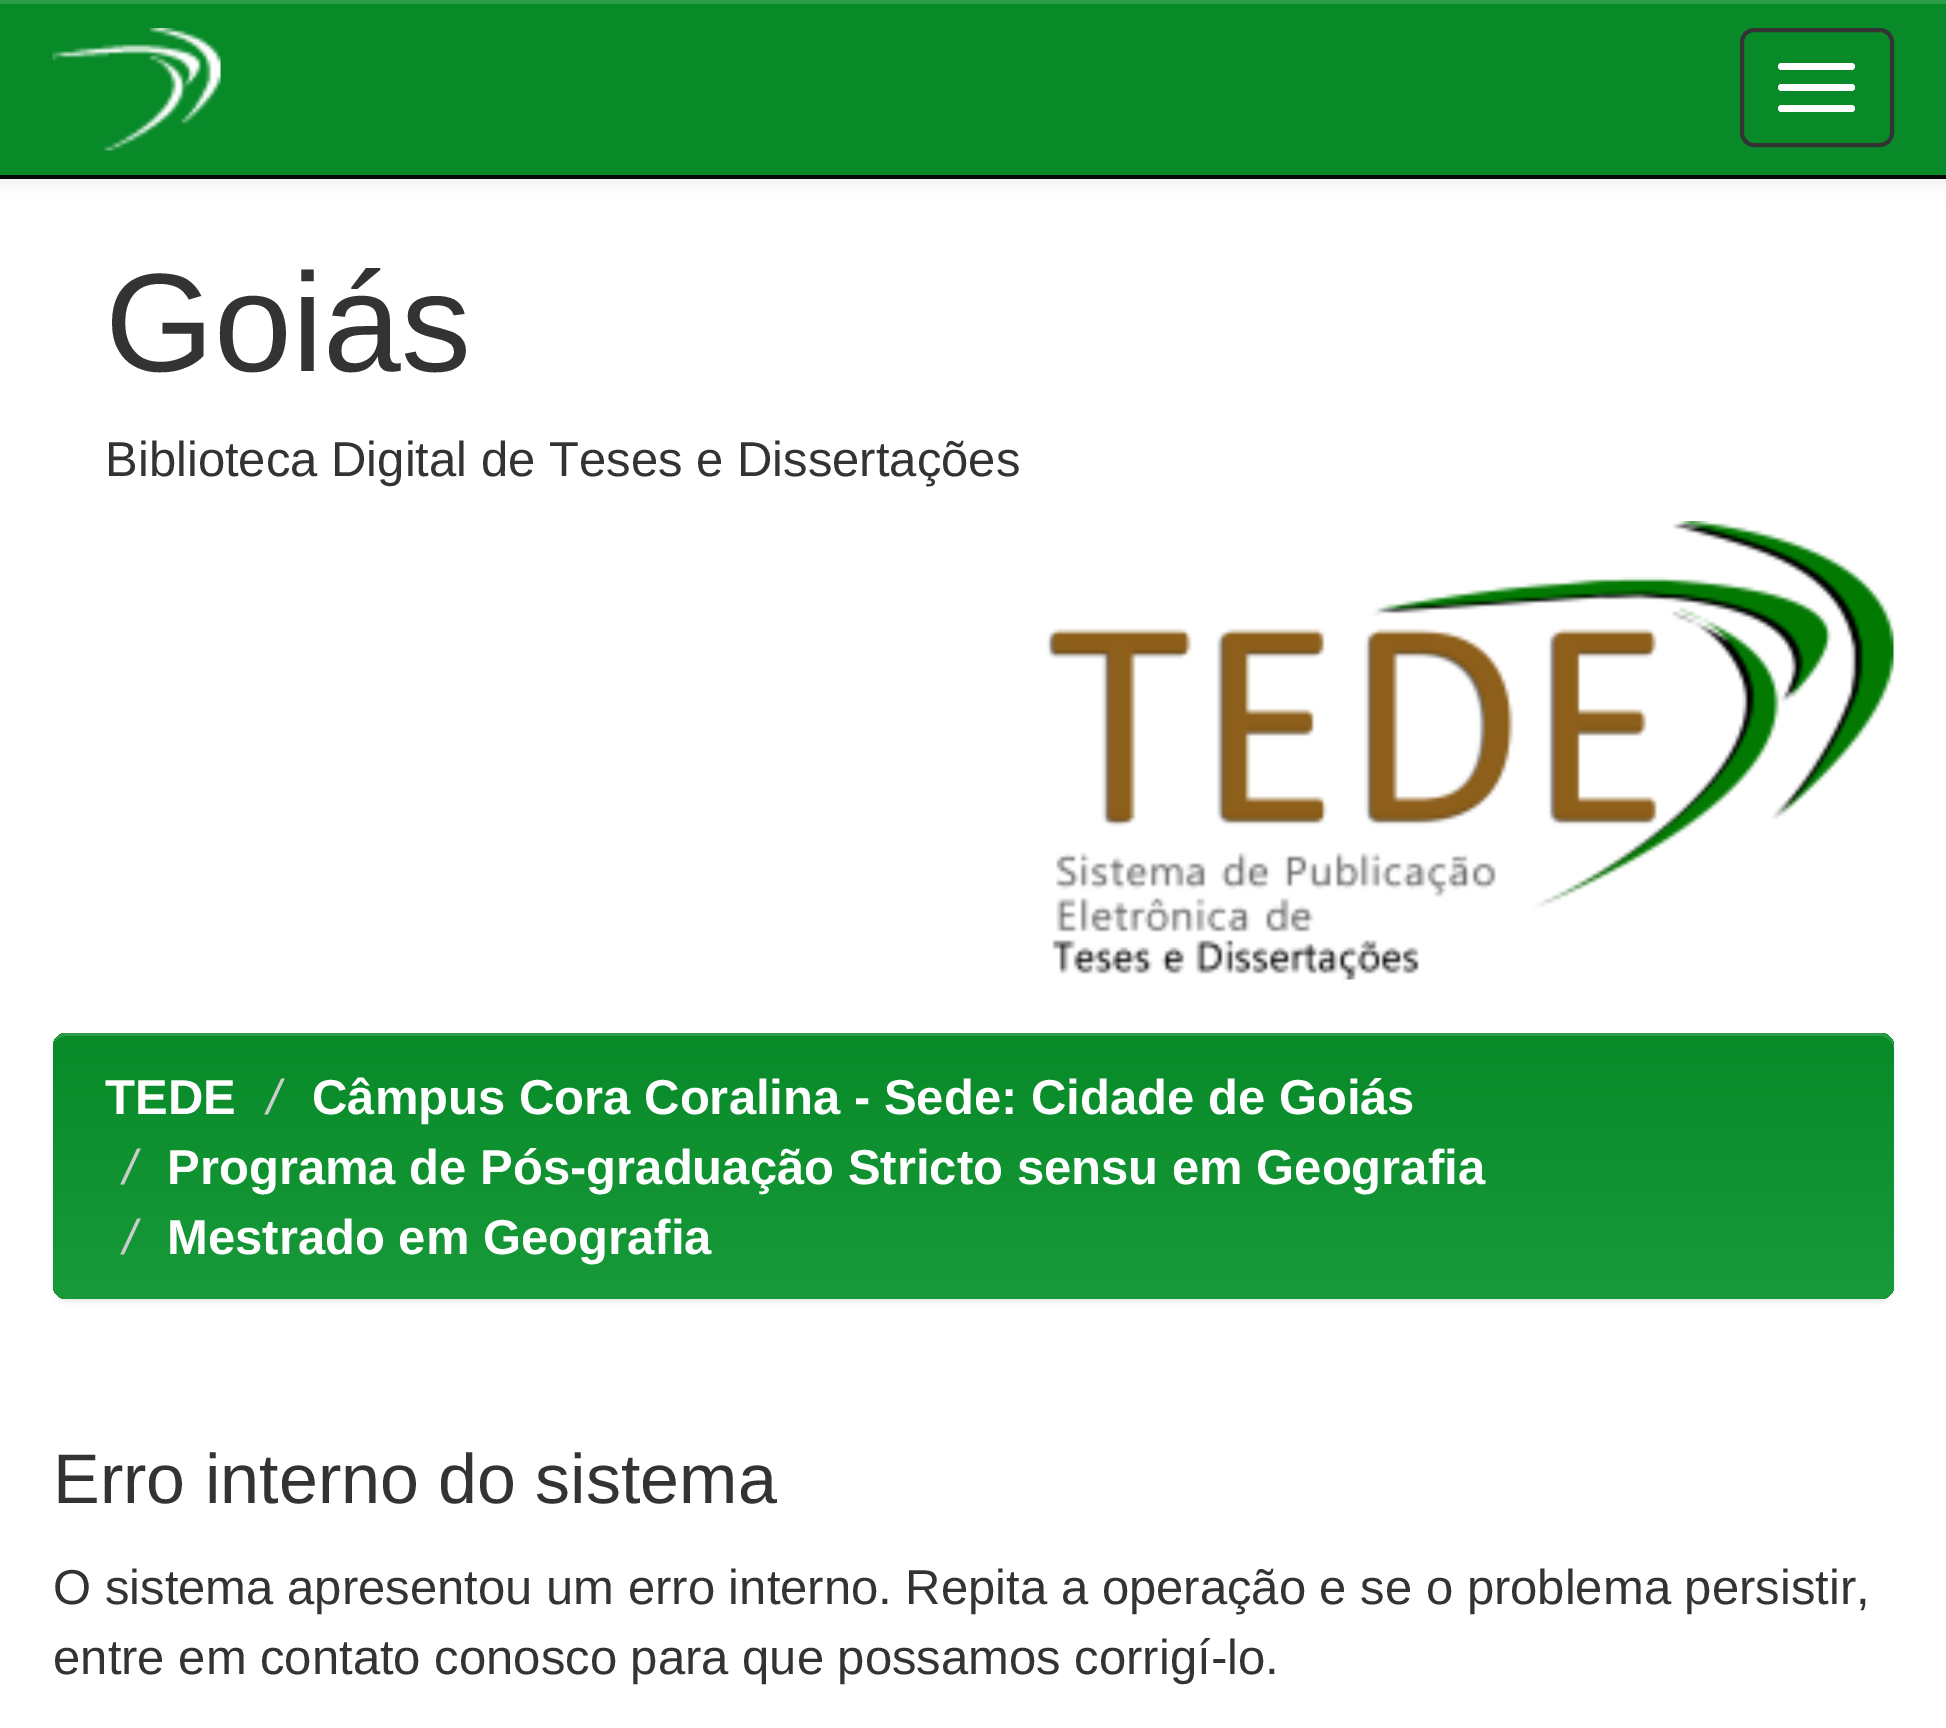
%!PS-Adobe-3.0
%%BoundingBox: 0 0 1946 1728
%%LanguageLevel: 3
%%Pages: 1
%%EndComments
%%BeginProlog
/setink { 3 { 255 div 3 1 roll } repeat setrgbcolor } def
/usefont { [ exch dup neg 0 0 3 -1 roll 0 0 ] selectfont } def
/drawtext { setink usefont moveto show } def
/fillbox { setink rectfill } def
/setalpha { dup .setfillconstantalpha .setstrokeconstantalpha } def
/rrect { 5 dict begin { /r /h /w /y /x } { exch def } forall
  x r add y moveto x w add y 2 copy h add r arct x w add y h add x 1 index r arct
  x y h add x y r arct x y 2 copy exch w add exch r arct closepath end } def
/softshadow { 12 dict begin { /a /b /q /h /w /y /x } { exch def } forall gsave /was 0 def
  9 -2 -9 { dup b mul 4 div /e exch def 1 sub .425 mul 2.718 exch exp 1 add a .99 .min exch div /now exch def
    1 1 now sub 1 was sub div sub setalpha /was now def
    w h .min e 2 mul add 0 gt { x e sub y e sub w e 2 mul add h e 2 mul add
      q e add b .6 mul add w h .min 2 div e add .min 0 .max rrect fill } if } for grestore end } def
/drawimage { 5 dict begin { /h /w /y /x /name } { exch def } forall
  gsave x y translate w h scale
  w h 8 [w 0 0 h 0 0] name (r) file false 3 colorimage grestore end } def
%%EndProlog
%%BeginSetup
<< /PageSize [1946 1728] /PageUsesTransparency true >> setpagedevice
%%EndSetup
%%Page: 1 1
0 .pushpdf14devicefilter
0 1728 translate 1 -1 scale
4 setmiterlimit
0 0 1946 1728 255 255 255 fillbox
0 0 0 setink
0 4 1946 178 0 9 0.07 softshadow
0 4 1946 171 8 138 41 fillbox
0 0 1946 4 45 156 73 fillbox
0 175 1946 4 8 8 8 fillbox
(assets/img1.rgb) 52 28 169 123 drawimage
51 51 51 setink
4 setlinewidth
1742 30 150 115 12 rrect stroke
255 255 255 setink
1778 63 77 7 3.5 rrect fill
1778 84 77 7 3.5 rrect fill
1778 105 77 7 3.5 rrect fill
(Goiás) 105 371 /LiberationSans-Regular 140 51 51 51 drawtext
(Biblioteca Digital de Teses e Dissertações) 105 476 /LiberationSans-Regular 49 51 51 51 drawtext
(assets/img2.rgb) 1046 521 848 459 drawimage
0 0 0 setink
53 1036 1841 266 14 2 0.07 softshadow
gsave 53 1033 1841 266 14 rrect clip newpath
<< /ShadingType 2 /ColorSpace /DeviceRGB /Coords [973 1032 973 1299] /Extend [true true] /Function << /FunctionType 2 /Domain [0 1] /C0 [0.031 0.541 0.161] /C1 [0.094 0.604 0.227] /N 1 >> >> shfill grestore
0.15 setalpha
255 255 255 setink
66 1036 moveto 1880 1036 lineto 1887 1036 1894 1042 1894 1050 curveto 1894 1047 lineto 1894 1039 1888 1033 1880 1033 curveto 67 1033 lineto 60 1033 55 1038 53 1044 curveto 56 1039 61 1036 66 1036 curveto closepath fill
1 setalpha
(TEDE) 105 1114 /LiberationSans-Bold 49 255 255 255 drawtext
(/) 267 1114 /LiberationSans-Italic 49 204 204 204 drawtext
(Câmpus Cora Coralina - Sede: Cidade de Goiás) 312 1114 /LiberationSans-Bold 49 255 255 255 drawtext
(/) 123 1184 /LiberationSans-Italic 49 204 204 204 drawtext
(Programa de Pós-graduação Stricto sensu em Geografia) 167 1184 /LiberationSans-Bold 49 255 255 255 drawtext
(/) 123 1254 /LiberationSans-Italic 49 204 204 204 drawtext
(Mestrado em Geografia) 167 1254 /LiberationSans-Bold 49 255 255 255 drawtext
(Erro interno do sistema) 53 1503 /LiberationSans-Regular 70 51 51 51 drawtext
(O sistema apresentou um erro interno. Repita a operação e se o problema persistir,) 53 1604 /LiberationSans-Regular 49 51 51 51 drawtext
(entre em contato conosco para que possamos corrigí-lo.) 53 1674 /LiberationSans-Regular 49 51 51 51 drawtext
.poppdf14devicefilter showpage
%%EOF
